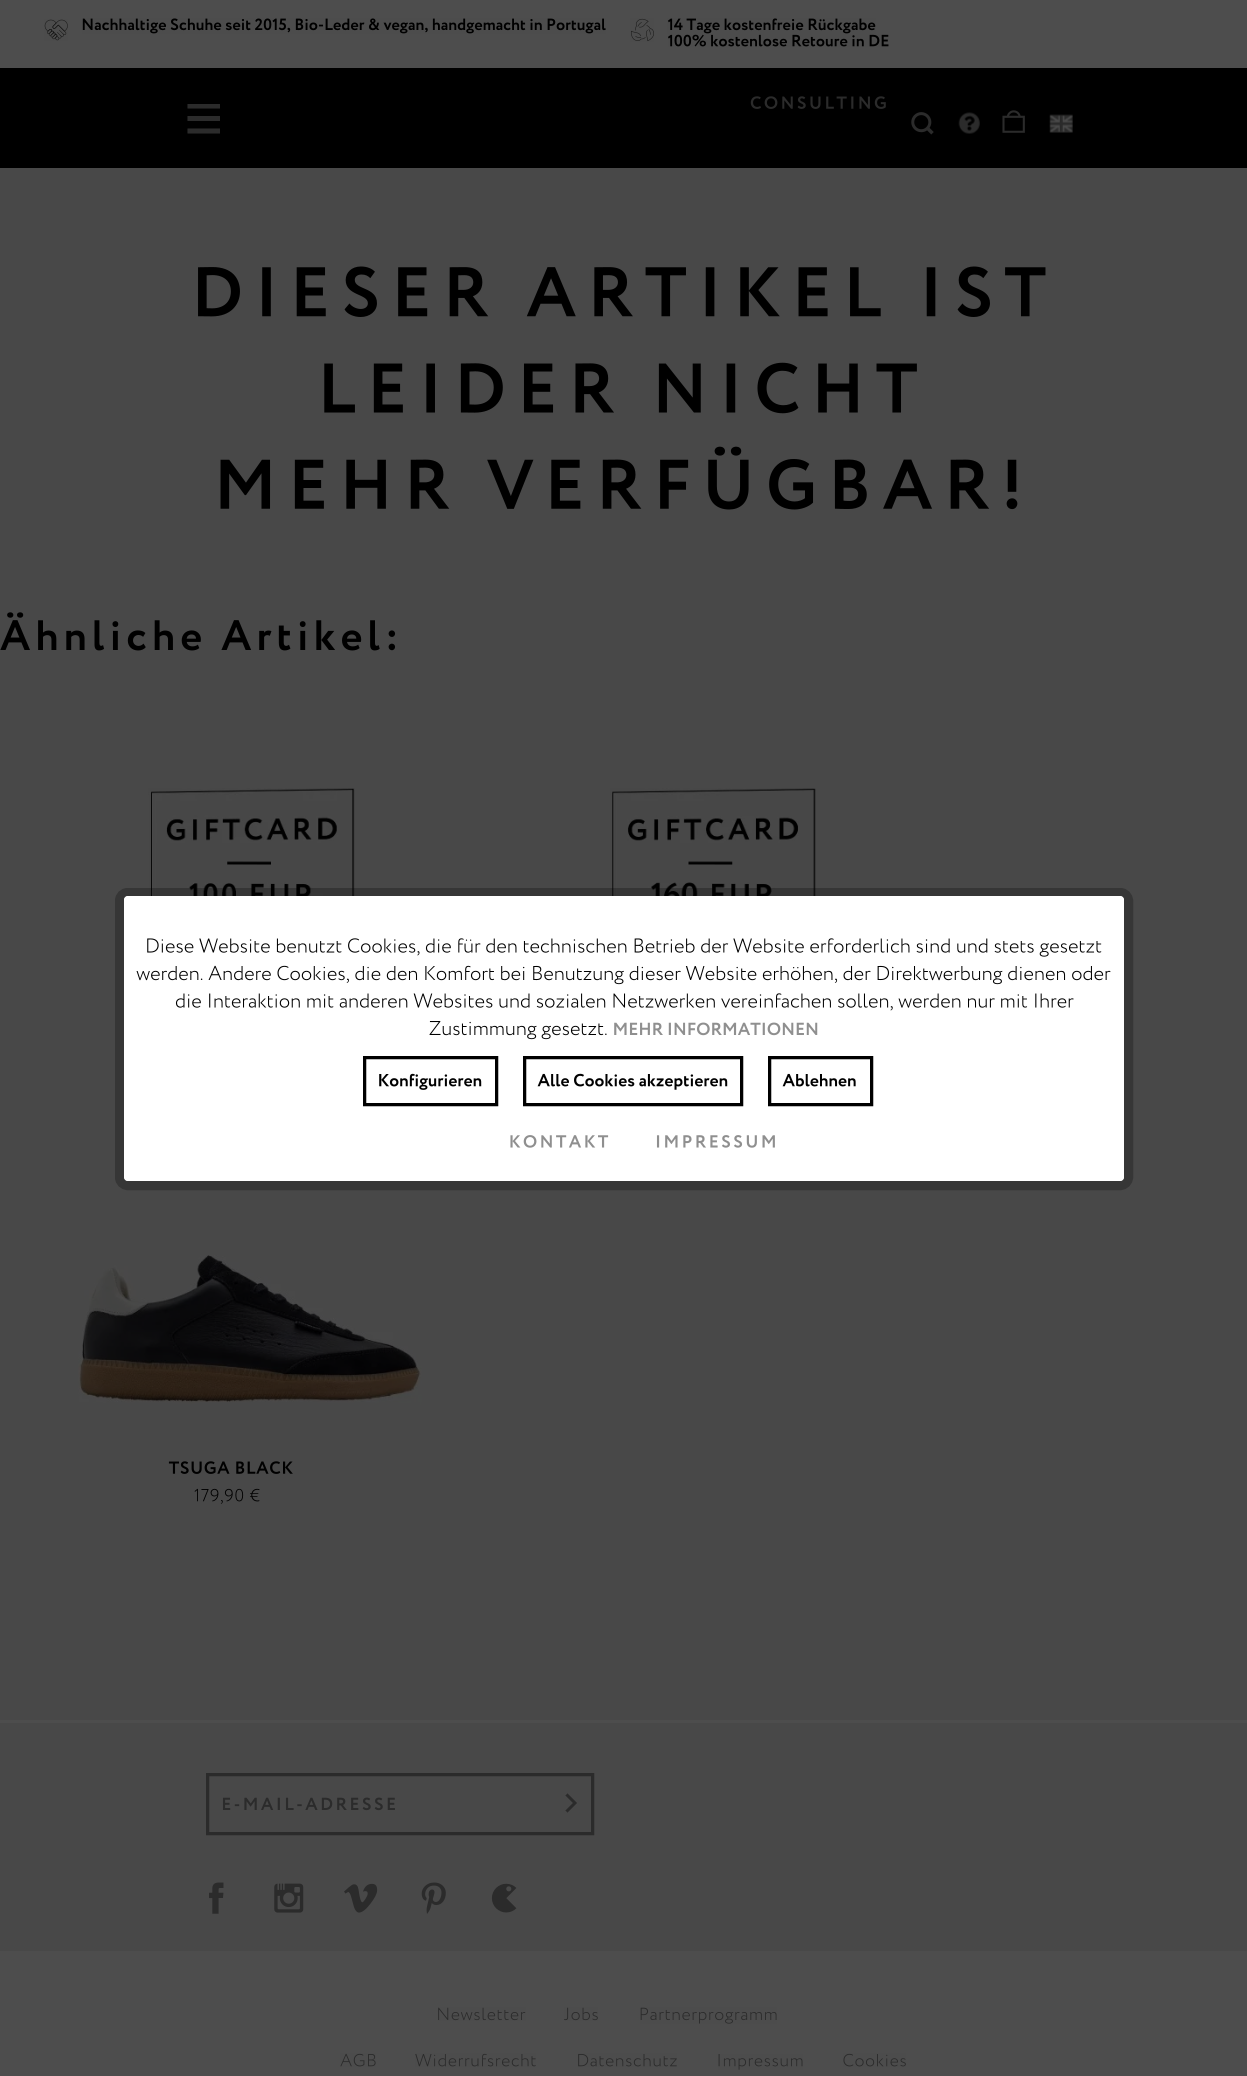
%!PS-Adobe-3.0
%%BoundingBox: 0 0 1247 2076
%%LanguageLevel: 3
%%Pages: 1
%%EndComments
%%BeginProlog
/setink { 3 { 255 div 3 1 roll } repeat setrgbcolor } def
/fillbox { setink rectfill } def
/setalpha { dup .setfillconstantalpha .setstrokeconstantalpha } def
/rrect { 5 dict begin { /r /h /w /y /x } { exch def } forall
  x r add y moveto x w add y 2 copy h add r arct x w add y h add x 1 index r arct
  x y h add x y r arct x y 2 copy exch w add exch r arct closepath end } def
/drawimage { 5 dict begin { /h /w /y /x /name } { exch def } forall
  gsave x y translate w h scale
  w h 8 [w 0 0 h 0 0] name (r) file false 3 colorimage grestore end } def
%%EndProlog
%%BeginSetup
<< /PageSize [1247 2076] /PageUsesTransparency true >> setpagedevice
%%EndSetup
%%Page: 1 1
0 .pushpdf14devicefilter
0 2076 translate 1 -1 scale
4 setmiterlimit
0 0 1247 2076 77 77 77 fillbox
0 168 1247 1552 72 72 72 fillbox
0 68 1247 100 0 0 0 fillbox
(assets/img1.rgb) 44 19 24 22 drawimage
(assets/img2.rgb) 82 18 524 16 drawimage
(assets/img3.rgb) 630 18 24 24 drawimage
(assets/img4.rgb) 667 18 209 16 drawimage
(assets/img5.rgb) 668 34 221 13 drawimage
43 43 43 setink
187.5 128.5 moveto 220 128.5 lineto 220 133.5 lineto 187.5 133.5 lineto closepath 187.5 116 moveto 220 116 lineto 220 121 lineto 187.5 121 lineto closepath 187.5 104 moveto 220 104 lineto 220 108.5 lineto 187.5 108.5 lineto closepath fill
(assets/img6.rgb) 750 96 136 13 drawimage
(assets/img7.rgb) 911 112 23 23 drawimage
(assets/img8.rgb) 958 112 22 22 drawimage
(assets/img9.rgb) 1002 110 23 23 drawimage
(assets/img10.rgb) 1049 114 24 19 drawimage
(assets/img11.rgb) 198 266 848 51 drawimage
(assets/img12.rgb) 324 362 593 52 drawimage
(assets/img13.rgb) 220 446 798 64 drawimage
(assets/img14.rgb) 0 612 396 39 drawimage
(assets/img15.rgb) 148 788 207 108 drawimage
(assets/img16.rgb) 610 788 206 108 drawimage
(assets/img17.rgb) 78 1255 344 187 drawimage
(assets/img18.rgb) 168 1461 125 13 drawimage
(assets/img19.rgb) 194 1488 66 16 drawimage
0 1723 1247 228 72 72 72 fillbox
43 43 43 setink
3 setlinewidth
207.5 1774.5 385 59 rectstroke
(assets/img20.rgb) 222 1797 173 14 drawimage
567.5 1812.5 moveto 565.5 1810.5 lineto 573 1803 lineto 565.5 1795.5 lineto 567.5 1793.5 lineto 577 1803 lineto closepath fill
(assets/img21.rgb) 209 1882 15 32 drawimage
(assets/img22.rgb) 274 1883 30 30 drawimage
(assets/img23.rgb) 344 1883 34 30 drawimage
(assets/img24.rgb) 421 1882 25 32 drawimage
(assets/img25.rgb) 491 1883 26 30 drawimage
(assets/img26.rgb) 438 2007 88 14 drawimage
(assets/img27.rgb) 564 2007 34 14 drawimage
(assets/img28.rgb) 640 2007 137 17 drawimage
(assets/img29.rgb) 340 2053 36 14 drawimage
(assets/img30.rgb) 415 2053 121 14 drawimage
(assets/img31.rgb) 578 2053 99 14 drawimage
(assets/img32.rgb) 718 2054 85 16 drawimage
(assets/img33.rgb) 843 2053 63 14 drawimage
0.25 setalpha
0 0 0 setink
9 setlinewidth
119.5 892.5 1009 293 8.5 rrect stroke
1 setalpha
255 255 255 setink
124 896 1000 285 4 rrect fill
(assets/img34.rgb) 147 938 955 19 drawimage
(assets/img35.rgb) 136 965 975 20 drawimage
(assets/img36.rgb) 175 993 899 18 drawimage
(assets/img37.rgb) 429 1021 178 19 drawimage
(assets/img38.rgb) 614 1022 204 14 drawimage
0 0 0 setink
3 setlinewidth
364.5 1057.5 132 47 rectstroke
(assets/img39.rgb) 379 1073 103 17 drawimage
524.5 1057.5 217 47 rectstroke
(assets/img40.rgb) 537 1073 191 17 drawimage
769.5 1057.5 102 47 rectstroke
(assets/img41.rgb) 782 1073 74 14 drawimage
(assets/img42.rgb) 510 1135 99 13 drawimage
(assets/img43.rgb) 656 1135 119 13 drawimage
.poppdf14devicefilter showpage
%%EOF
